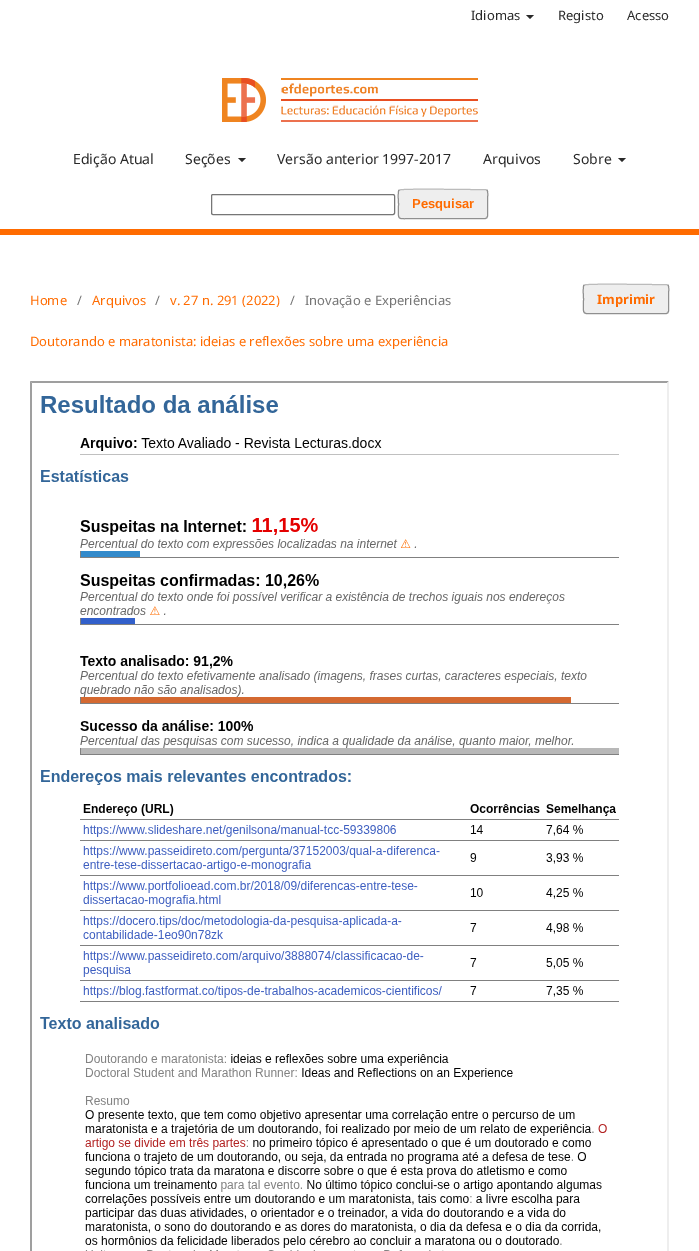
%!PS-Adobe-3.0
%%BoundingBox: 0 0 699 1251
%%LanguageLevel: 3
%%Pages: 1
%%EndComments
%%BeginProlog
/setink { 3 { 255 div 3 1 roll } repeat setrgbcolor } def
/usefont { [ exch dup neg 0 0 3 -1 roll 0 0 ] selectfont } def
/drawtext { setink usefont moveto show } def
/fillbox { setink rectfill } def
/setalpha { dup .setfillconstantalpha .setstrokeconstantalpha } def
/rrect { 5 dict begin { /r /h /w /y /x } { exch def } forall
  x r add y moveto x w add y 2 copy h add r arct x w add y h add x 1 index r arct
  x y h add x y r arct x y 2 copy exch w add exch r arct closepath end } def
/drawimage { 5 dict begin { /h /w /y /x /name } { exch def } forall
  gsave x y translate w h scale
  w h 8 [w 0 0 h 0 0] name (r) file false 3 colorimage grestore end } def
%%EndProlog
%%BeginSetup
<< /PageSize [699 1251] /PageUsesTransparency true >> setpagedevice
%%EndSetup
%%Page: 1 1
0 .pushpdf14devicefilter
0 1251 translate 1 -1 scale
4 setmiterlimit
0 0 699 1251 255 255 255 fillbox
0 229 699 6 255 107 0 fillbox
(Idiomas) 471 20 /NotoSans-Regular 13 41 41 41 drawtext
526 15 moveto 534 15 lineto 530 19 lineto closepath fill
(Registo) 558 20 /NotoSans-Regular 13 41 41 41 drawtext
(Acesso) 627 20 /NotoSans-Regular 13 41 41 41 drawtext
(assets/img1.rgb) 222 78 256 44 drawimage
(Edição Atual) 73 164 /NotoSans-Regular 14 41 41 41 drawtext
(Seções) 185 164 /NotoSans-Regular 14 41 41 41 drawtext
238 158 moveto 246 158 lineto 242 162 lineto closepath fill
(Versão anterior 1997-2017) 277 164 /NotoSans-Regular 14 41 41 41 drawtext
(Arquivos) 483 164 /NotoSans-Regular 14 41 41 41 drawtext
(Sobre) 573 164 /NotoSans-Regular 14 41 41 41 drawtext
618 158 moveto 626 158 lineto 622 162 lineto closepath fill
118 118 118 setink
211.5 194.5 183 20 1.5 rrect stroke
238 238 238 setink
398 189 90 30 3 rrect fill
187 187 187 setink
399 190 moveto 399.5 190 lineto 401.5 188.5 463.5 189.5 471 189.5 curveto 485 189.5 lineto 487 190 lineto stroke
0.4 setalpha
0 0 0 setink
487 190 moveto 488.5 192 487.5 198 487.5 200 curveto 487.5 212 lineto 487.5 214 488.5 218.5 485 218.5 curveto 415 218.5 lineto 395.5 218.5 398.5 222 398.5 204 curveto 398.5 201.5 397.5 192 399 190 curveto stroke
1 setalpha
(Pesquisar) 412 208 /LiberationSans-Bold 13 255 107 0 drawtext
238 238 238 setink
583 284 86 30 3 rrect fill
187 187 187 setink
584 285 moveto 584.5 285 lineto 586.5 283.5 645.5 284.5 652.5 284.5 curveto 666 284.5 lineto 668 285 lineto stroke
0.4 setalpha
0 0 0 setink
668 285 moveto 669.5 287 668.5 293 668.5 295 curveto 668.5 307 lineto 668.5 309 669.5 313.5 666 313.5 curveto 599.5 313.5 lineto 580.5 313.5 583.5 316.5 583.5 299 curveto 583.5 296.5 582.5 287 584 285 curveto stroke
1 setalpha
(Imprimir) 597 304 /NotoSans-Bold 13 255 107 0 drawtext
(Doutorando e maratonista: ideias e reflexões sobre uma experiência) 30 346 /NotoSans-Regular 13 255 107 0 drawtext
159 159 159 setink
30 381 moveto 669 381 lineto 667 383 lineto 32 383 lineto closepath fill
30 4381 moveto 30 381 lineto 32 383 lineto 32 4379 lineto closepath fill
(assets/img2.rgb) 40 395 579 856 drawimage
238 238 238 setink
669 381 moveto 669 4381 lineto 667 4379 lineto 667 383 lineto closepath fill
(Home) 30 305 /NotoSans-Regular 13 255 107 0 drawtext
(/) 77 305 /NotoSans-Regular 13 117 117 117 drawtext
(Arquivos) 92 305 /NotoSans-Regular 13 255 107 0 drawtext
(/) 155 305 /NotoSans-Regular 13 117 117 117 drawtext
(v. 27 n. 291 \(2022\)) 170 305 /NotoSans-Regular 13 255 107 0 drawtext
(/) 290 305 /NotoSans-Regular 13 117 117 117 drawtext
(Inovação e Experiências) 305 305 /NotoSans-Regular 13 117 117 117 drawtext
.poppdf14devicefilter showpage
%%EOF
